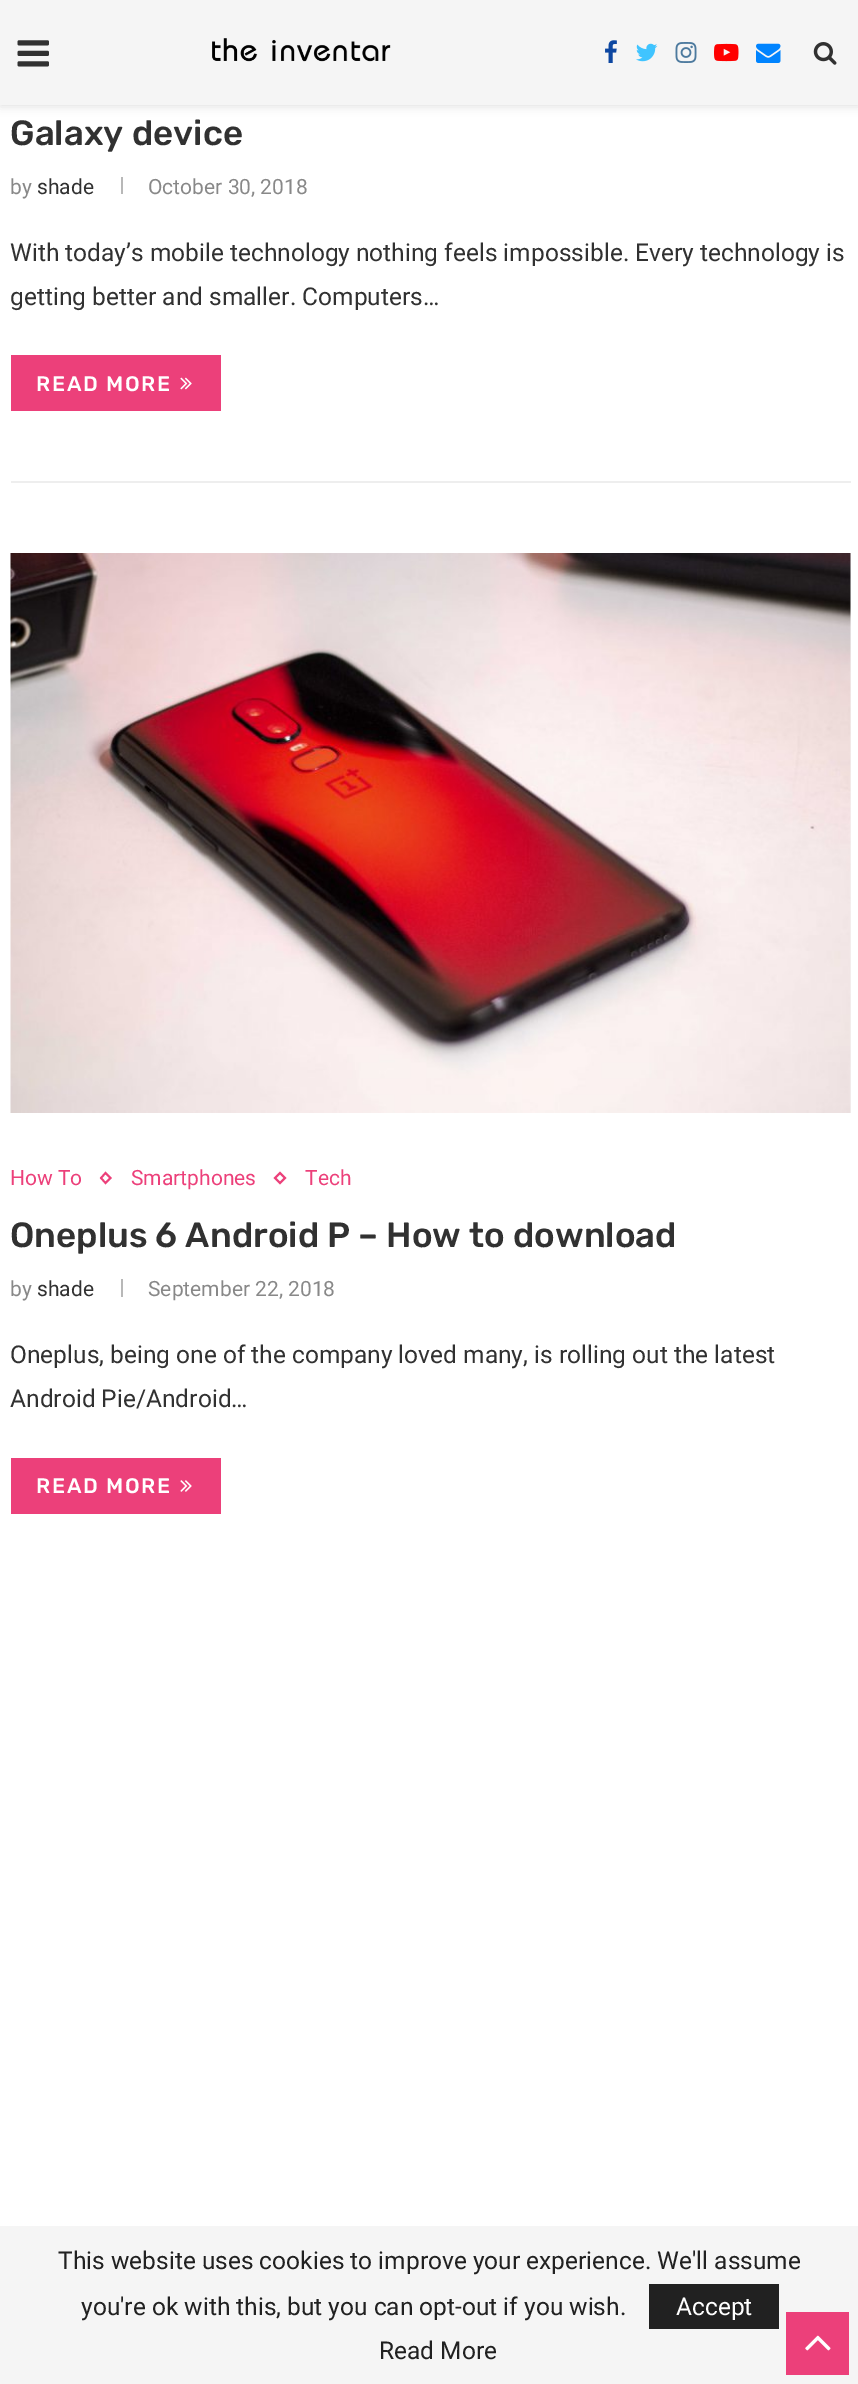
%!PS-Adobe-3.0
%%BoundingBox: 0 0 858 2384
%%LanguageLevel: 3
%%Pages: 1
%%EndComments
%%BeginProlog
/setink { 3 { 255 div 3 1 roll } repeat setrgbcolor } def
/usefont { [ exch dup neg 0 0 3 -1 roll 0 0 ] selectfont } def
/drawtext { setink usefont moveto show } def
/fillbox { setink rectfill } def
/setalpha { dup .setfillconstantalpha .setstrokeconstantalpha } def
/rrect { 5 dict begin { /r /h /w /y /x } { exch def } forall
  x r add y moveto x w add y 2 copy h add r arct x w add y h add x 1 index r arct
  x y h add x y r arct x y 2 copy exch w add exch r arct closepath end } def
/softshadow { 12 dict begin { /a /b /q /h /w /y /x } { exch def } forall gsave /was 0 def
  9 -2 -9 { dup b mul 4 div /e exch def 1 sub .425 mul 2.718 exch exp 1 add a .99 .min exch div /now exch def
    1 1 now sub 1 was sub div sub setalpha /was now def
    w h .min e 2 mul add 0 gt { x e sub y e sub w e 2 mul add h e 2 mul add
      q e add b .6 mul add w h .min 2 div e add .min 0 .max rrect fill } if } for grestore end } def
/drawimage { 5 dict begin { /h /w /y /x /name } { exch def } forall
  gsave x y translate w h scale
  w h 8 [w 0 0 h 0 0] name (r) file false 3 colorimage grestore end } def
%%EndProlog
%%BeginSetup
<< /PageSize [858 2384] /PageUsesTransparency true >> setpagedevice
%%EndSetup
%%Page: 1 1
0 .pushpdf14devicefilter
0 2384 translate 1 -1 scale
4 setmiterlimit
0 0 858 2384 255 255 255 fillbox
190 190 190 setink
0 2 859 105 0 4.5 0.46 softshadow
0 0 858 105 245 245 245 fillbox
(assets/img1.rgb) 17 40 32 27 drawimage
(assets/img2.rgb) 212 38 179 24 drawimage
(assets/img3.rgb) 605 40 12 23 drawimage
(assets/img4.rgb) 636 43 22 19 drawimage
(assets/img5.rgb) 675 42 22 21 drawimage
(assets/img6.rgb) 714 43 25 19 drawimage
(assets/img7.rgb) 756 43 25 20 drawimage
(assets/img8.rgb) 813 42 24 23 drawimage
11 481 840 2 238 238 238 fillbox
(Galaxy device) 10 145 /Rubik-Medium 35 49 49 49 drawtext
(by) 10 194 /Roboto-Regular 21 136 136 136 drawtext
(shade) 37 194 /Roboto-Regular 21 49 49 49 drawtext
121 177 2 17 184 184 184 fillbox
(October 30, 2018) 148 194 /Roboto-Regular 21 136 136 136 drawtext
(With today’s mobile technology nothing feels impossible. Every technology is) 10 261 /Roboto-Regular 24.5 49 49 49 drawtext
(getting better and smaller. Computers…) 10 305 /Roboto-Regular 24.5 49 49 49 drawtext
11 355 210 56 236 64 122 fillbox
/Rubik-Medium 21 usefont
255 255 255 setink
36 391 moveto 1.75 0 (READ MORE) ashow
(assets/img9.rgb) 180 377 12 13 drawimage
850 553 1 560 245 245 245 fillbox
(assets/img10.rgb) 10 553 841 560 drawimage
(How To) 10 1185 /Roboto-Regular 21 236 64 122 drawtext
1.8 setlinewidth
105.5 1173 moveto 110.5 1178 lineto 105.5 1183 lineto 101 1178 lineto closepath stroke
(Smartphones) 131 1185 /Roboto-Regular 21 236 64 122 drawtext
280 1173 moveto 285 1178 lineto 280 1183 lineto 275 1178 lineto closepath stroke
(Tech) 305 1185 /Roboto-Regular 21 236 64 122 drawtext
(Oneplus 6 Android P – How to download) 10 1247 /Rubik-Medium 35 49 49 49 drawtext
(by) 10 1296 /Roboto-Regular 21 136 136 136 drawtext
(shade) 37 1296 /Roboto-Regular 21 49 49 49 drawtext
121 1279 2 18 184 184 184 fillbox
(September 22, 2018) 148 1296 /Roboto-Regular 21 136 136 136 drawtext
(Oneplus, being one of the company loved many, is rolling out the latest) 10 1363 /Roboto-Regular 24.5 49 49 49 drawtext
(Android Pie/Android…) 10 1407 /Roboto-Regular 24.5 49 49 49 drawtext
11 1458 210 56 236 64 122 fillbox
/Rubik-Medium 21 usefont
255 255 255 setink
36 1493 moveto 1.75 0 (READ MORE) ashow
(assets/img11.rgb) 180 1480 12 12 drawimage
0 2226 858 158 245 245 245 fillbox
786 2312 63 63 236 64 122 fillbox
(assets/img12.rgb) 805 2335 26 16 drawimage
(This website uses cookies to improve your experience. We'll assume) 58 2269 /Roboto-Regular 24.5 33 33 33 drawtext
(you're ok with this, but you can opt-out if you wish.) 81 2315 /Roboto-Regular 24.5 33 33 33 drawtext
649 2284 130 45 33 33 33 fillbox
(Accept) 676 2315 /Roboto-Regular 24.5 255 255 255 drawtext
(Read More) 379 2359 /Roboto-Regular 24.5 33 33 33 drawtext
.poppdf14devicefilter showpage
%%EOF
